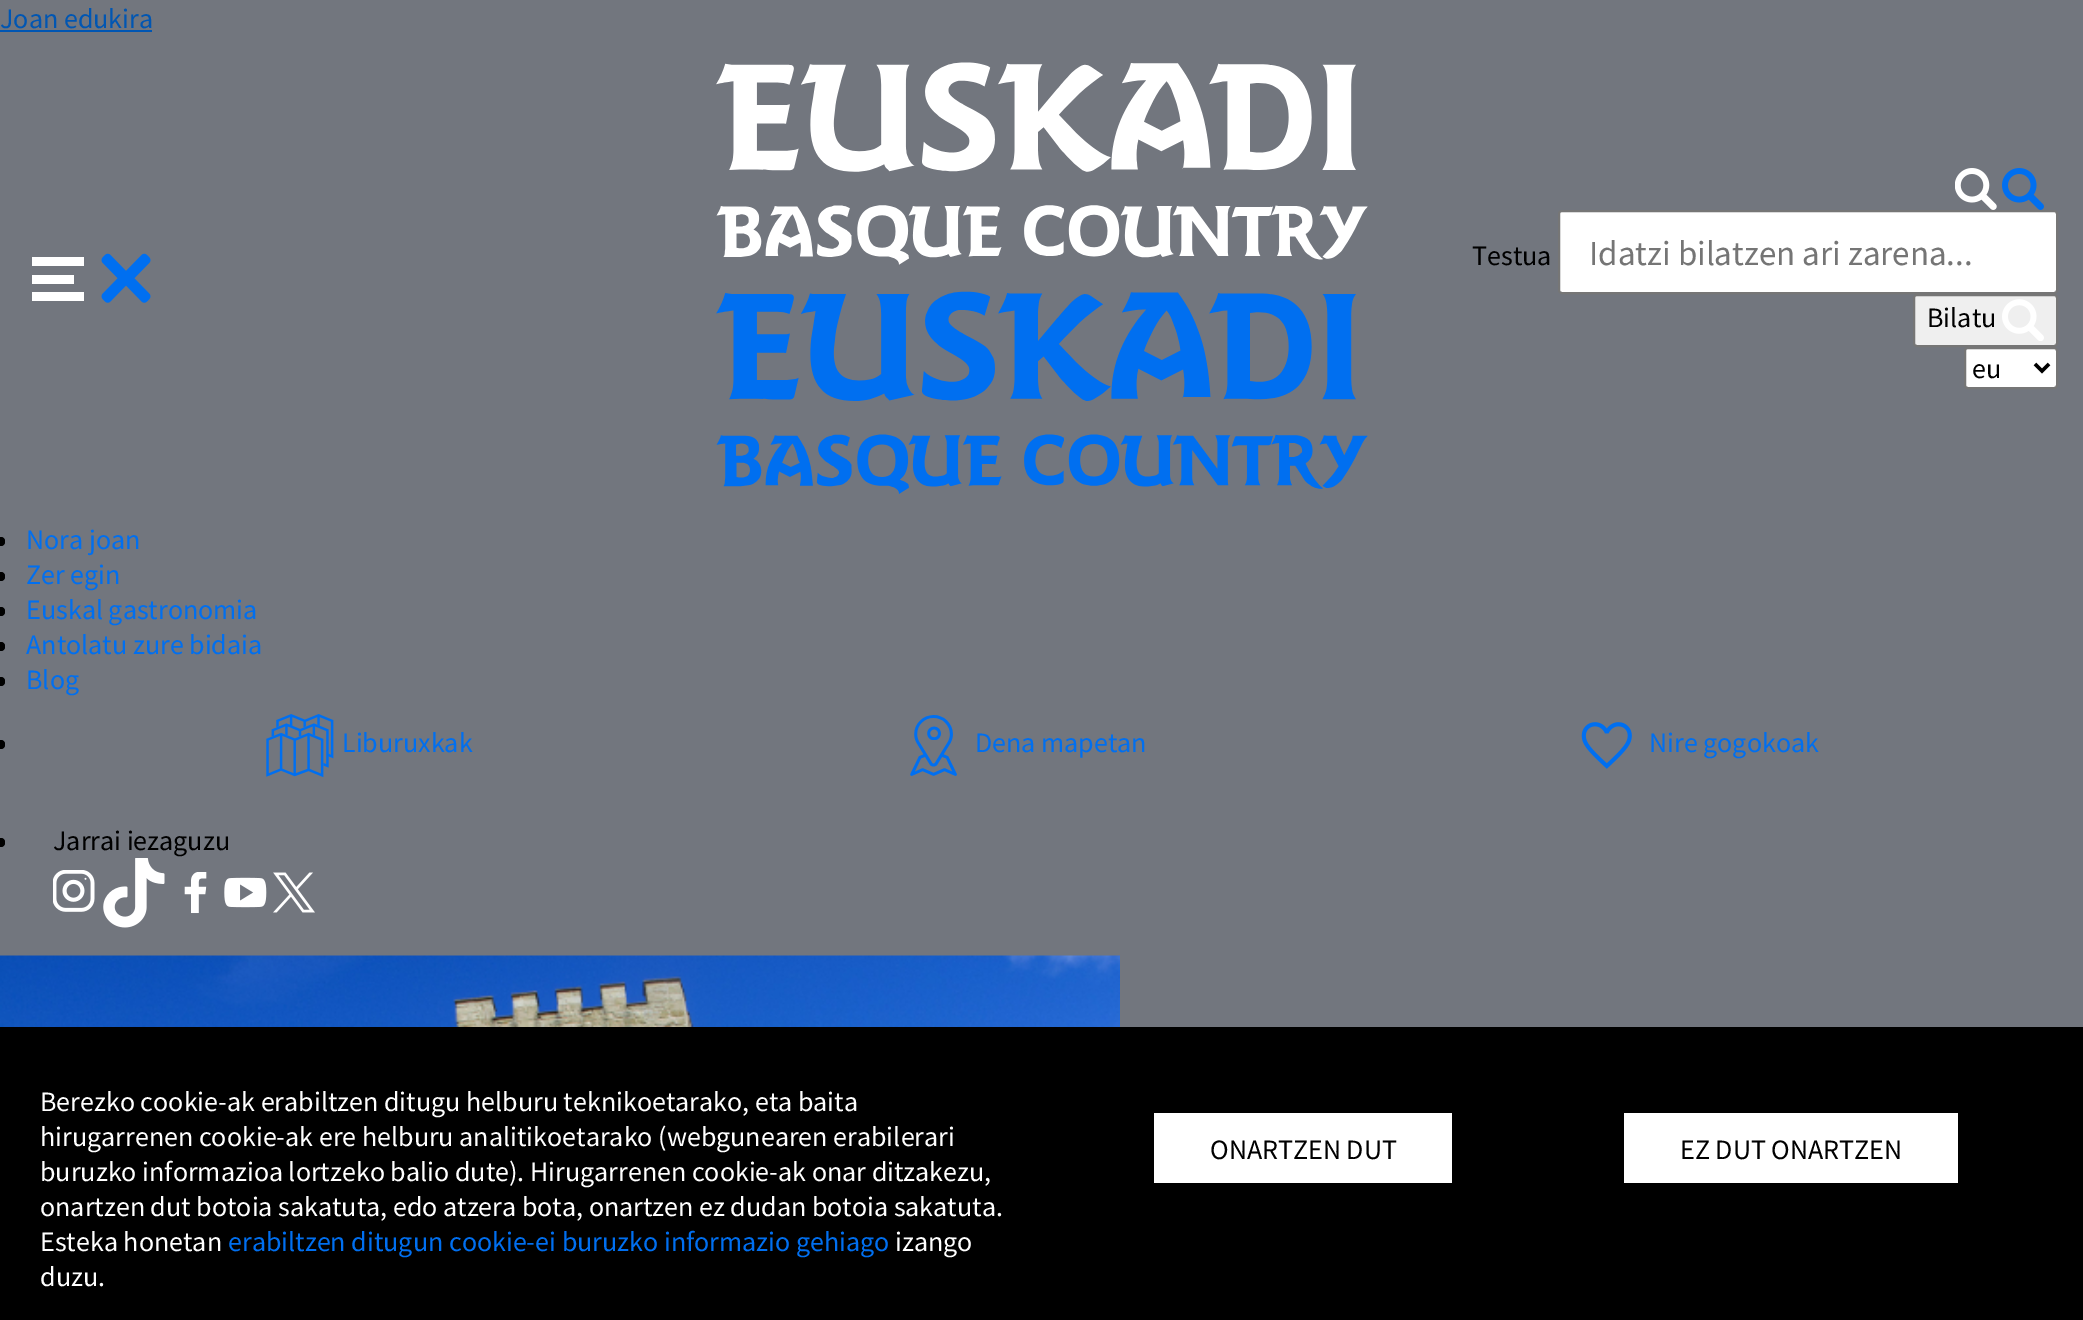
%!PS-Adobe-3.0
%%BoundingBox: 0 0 2083 1320
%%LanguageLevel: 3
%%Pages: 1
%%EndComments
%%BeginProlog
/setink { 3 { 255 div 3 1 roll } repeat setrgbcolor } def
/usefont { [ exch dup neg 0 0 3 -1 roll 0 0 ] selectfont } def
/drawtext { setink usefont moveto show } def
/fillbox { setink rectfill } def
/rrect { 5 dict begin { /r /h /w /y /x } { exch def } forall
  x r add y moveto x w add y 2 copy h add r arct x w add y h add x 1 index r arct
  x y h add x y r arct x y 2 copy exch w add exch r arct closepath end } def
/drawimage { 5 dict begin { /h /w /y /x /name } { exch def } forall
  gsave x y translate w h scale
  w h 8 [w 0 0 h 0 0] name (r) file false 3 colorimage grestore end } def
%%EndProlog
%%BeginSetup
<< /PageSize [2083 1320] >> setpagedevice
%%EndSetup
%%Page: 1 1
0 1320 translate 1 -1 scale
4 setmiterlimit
0 0 2083 1320 114 118 126 fillbox
(Joan edukira) 0 28 /SourceSansPro-Regular 28 0 86 179 drawtext
0 30 152 2 0 86 179 fillbox
32 257 52 9 255 255 255 fillbox
(assets/img1.rgb) 101 253 50 50 drawimage
32 275 42 9 255 255 255 fillbox
32 292 52 9 255 255 255 fillbox
(assets/img2.rgb) 716 62 652 203 drawimage
(assets/img3.rgb) 716 291 652 203 drawimage
(assets/img4.rgb) 1955 168 42 42 drawimage
(assets/img5.rgb) 2002 168 42 42 drawimage
(Testua) 1472 265 /SourceSansPro-Regular 28 0 0 0 drawtext
255 255 255 setink
1559 211 498 82 3 rrect gsave fill grestore
118 118 118 setink
2 setlinewidth
stroke
(Idatzi bilatzen ari zarena...) 1589 265 /SourceSansPro-Regular 35 117 117 117 drawtext
239 239 239 setink
1914 295 143 51 3 rrect gsave fill grestore
118 118 118 setink
stroke
(Bilatu) 1927 327 /SourceSansPro-Regular 28 0 0 0 drawtext
(assets/img6.rgb) 2002 299 42 42 drawimage
255 255 255 setink
1965 348 92 40 3 rrect gsave fill grestore
118 118 118 setink
stroke
0 0 0 setink
3.5 setlinewidth
2035 364 moveto 2042 371 lineto 2049 364 lineto stroke
(eu) 1972 378 /SourceSansPro-Regular 28 0 0 0 drawtext
-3 537 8 9 4 rrect fill
(Nora joan) 26 549 /SourceSansPro-Regular 28 0 111 240 drawtext
0 0 0 setink
-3 572 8 9 4 rrect fill
(Zer egin) 26 584 /SourceSansPro-Regular 28 0 111 240 drawtext
0 0 0 setink
-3 607 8 9 4 rrect fill
(Euskal gastronomia) 26 619 /SourceSansPro-Regular 28 0 111 240 drawtext
0 0 0 setink
-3 642 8 9 4 rrect fill
(Antolatu zure bidaia) 26 654 /SourceSansPro-Regular 28 0 111 240 drawtext
0 0 0 setink
-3 677 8 9 4 rrect fill
(Blog) 26 689 /SourceSansPro-Regular 28 0 111 240 drawtext
0 0 0 setink
-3 740 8 9 4 rrect fill
(assets/img7.rgb) 266 714 68 64 drawimage
(Liburuxkak) 342 752 /SourceSansPro-Regular 28 0 111 240 drawtext
(assets/img8.rgb) 910 715 47 61 drawimage
(Dena mapetan) 975 752 /SourceSansPro-Regular 28 0 111 240 drawtext
(assets/img9.rgb) 1581 722 51 47 drawimage
(Nire gogokoak) 1649 752 /SourceSansPro-Regular 28 0 111 240 drawtext
0 0 0 setink
-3 838 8 9 4 rrect fill
(Jarrai iezaguzu) 53 850 /SourceSansPro-Regular 28 0 0 0 drawtext
(assets/img10.rgb) 53 870 42 42 drawimage
(assets/img11.rgb) 103 858 62 70 drawimage
(assets/img12.rgb) 184 872 23 42 drawimage
(assets/img13.rgb) 224 877 43 31 drawimage
(assets/img14.rgb) 273 872 42 41 drawimage
(assets/img15.rgb) 0 955 1120 72 drawimage
0 1027 2083 293 0 0 0 fillbox
(Berezko cookie-ak erabiltzen ditugu helburu teknikoetarako, eta baita) 40 1111 /SourceSansPro-Regular 28 255 255 255 drawtext
(hirugarrenen cookie-ak ere helburu analitikoetarako \(webgunearen erabilerari) 40 1146 /SourceSansPro-Regular 28 255 255 255 drawtext
(buruzko informazioa lortzeko balio dute\). Hirugarrenen cookie-ak onar ditzakezu,) 40 1181 /SourceSansPro-Regular 28 255 255 255 drawtext
(onartzen dut botoia sakatuta, edo atzera bota, onartzen ez dudan botoia sakatuta.) 40 1216 /SourceSansPro-Regular 28 255 255 255 drawtext
(Esteka honetan) 40 1251 /SourceSansPro-Regular 28 255 255 255 drawtext
(erabiltzen ditugun cookie-ei buruzko informazio gehiago) 228 1251 /SourceSansPro-Regular 28 0 111 240 drawtext
(izango) 895 1251 /SourceSansPro-Regular 28 255 255 255 drawtext
(duzu.) 40 1286 /SourceSansPro-Regular 28 255 255 255 drawtext
1154 1113 298 70 255 255 255 fillbox
(ONARTZEN DUT) 1210 1159 /SourceSansPro-Regular 28 0 0 0 drawtext
1624 1113 334 70 255 255 255 fillbox
(EZ DUT ONARTZEN) 1680 1159 /SourceSansPro-Regular 28 0 0 0 drawtext
showpage
%%EOF
